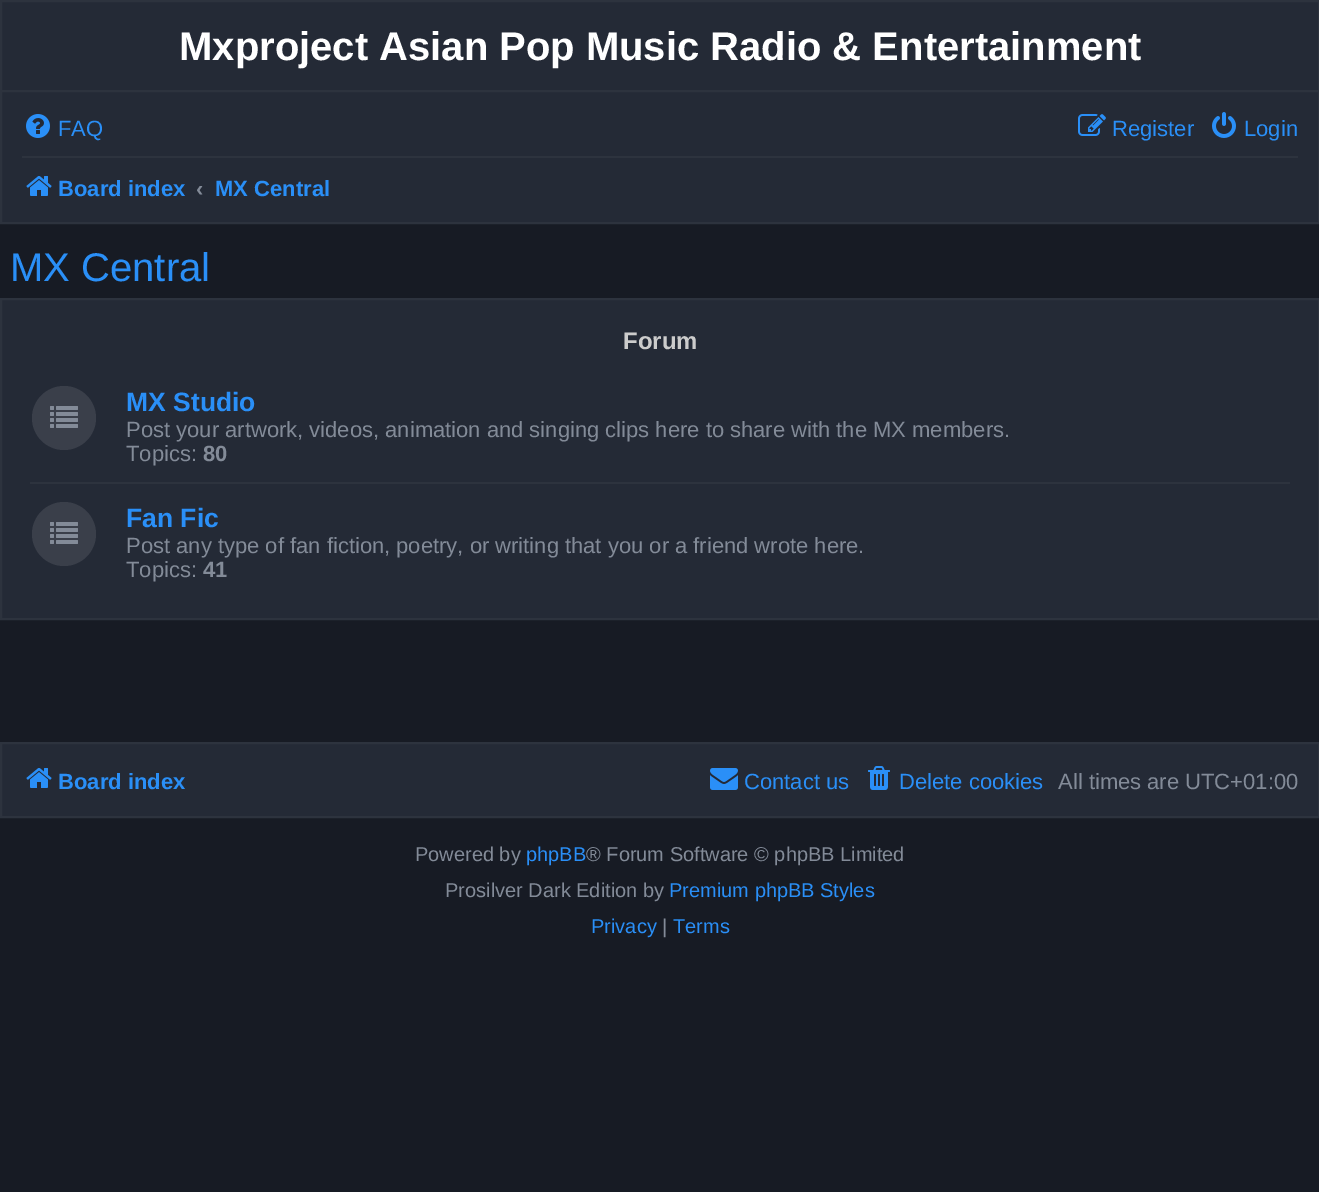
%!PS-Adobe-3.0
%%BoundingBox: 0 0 1319 1192
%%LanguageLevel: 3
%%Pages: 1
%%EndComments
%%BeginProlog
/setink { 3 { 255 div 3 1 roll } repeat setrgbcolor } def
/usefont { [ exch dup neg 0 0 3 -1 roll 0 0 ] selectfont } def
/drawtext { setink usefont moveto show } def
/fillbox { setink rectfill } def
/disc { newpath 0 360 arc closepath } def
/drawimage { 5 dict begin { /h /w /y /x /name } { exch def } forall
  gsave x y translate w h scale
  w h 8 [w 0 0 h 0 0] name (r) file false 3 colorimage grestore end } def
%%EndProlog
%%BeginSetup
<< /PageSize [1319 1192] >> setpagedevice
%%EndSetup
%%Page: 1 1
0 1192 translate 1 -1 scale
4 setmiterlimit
0 0 1319 1192 23 27 36 fillbox
36 42 54 setink
1 1 moveto 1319 1 lineto 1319 91 lineto 1 91 lineto closepath gsave fill grestore
45 51 62 setink
2 setlinewidth
stroke
(Mxproject Asian Pop Music Radio & Entertainment) 179 60 /LiberationSans-Bold 40 255 255 255 drawtext
36 42 54 setink
1 91 moveto 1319 91 lineto 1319 223 lineto 1 223 lineto closepath gsave fill grestore
45 51 62 setink
stroke
(assets/img1.rgb) 26 114 24 24 drawimage
(FAQ) 58 136 /LiberationSans-Regular 22 42 143 247 drawtext
(assets/img2.rgb) 1078 114 28 22 drawimage
(Register) 1112 136 /LiberationSans-Regular 22 42 143 247 drawtext
(assets/img3.rgb) 1212 112 24 26 drawimage
(Login) 1244 136 /LiberationSans-Regular 22 42 143 247 drawtext
22 156 1276 2 45 51 62 fillbox
(assets/img4.rgb) 26 176 26 20 drawimage
(Board index) 58 196 /LiberationSans-Bold 22 42 143 247 drawtext
(‹) 196 196 /LiberationSans-Bold 22 131 139 152 drawtext
(MX Central) 215 196 /LiberationSans-Bold 22 42 143 247 drawtext
(MX Central) 10 281 /LiberationSans-Regular 40 42 143 247 drawtext
36 42 54 setink
1 299 moveto 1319 299 lineto 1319 619 lineto 1 619 lineto closepath gsave fill grestore
45 51 62 setink
stroke
(Forum) 623 349 /LiberationSans-Bold 24 204 204 204 drawtext
30 482 1260 2 45 51 62 fillbox
58 63 74 setink
64 418 32 disc fill
(assets/img5.rgb) 50 406 28 22 drawimage
(MX Studio) 126 411 /LiberationSans-Bold 26.5 42 143 247 drawtext
(Post your artwork, videos, animation and singing clips here to share with the MX members.) 126 437 /LiberationSans-Regular 22 131 139 152 drawtext
(Topics:) 126 461 /LiberationSans-Regular 22 131 139 152 drawtext
(80) 203 461 /LiberationSans-Bold 22 131 139 152 drawtext
58 63 74 setink
64 534 32 disc fill
(assets/img5.rgb) 50 522 28 22 drawimage
(Fan Fic) 126 527 /LiberationSans-Bold 26.5 42 143 247 drawtext
(Post any type of fan fiction, poetry, or writing that you or a friend wrote here.) 126 553 /LiberationSans-Regular 22 131 139 152 drawtext
(Topics:) 126 577 /LiberationSans-Regular 22 131 139 152 drawtext
(41) 203 577 /LiberationSans-Bold 22 131 139 152 drawtext
36 42 54 setink
1 743 moveto 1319 743 lineto 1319 817 lineto 1 817 lineto closepath gsave fill grestore
45 51 62 setink
stroke
(assets/img4.rgb) 26 768 26 20 drawimage
(Board index) 58 789 /LiberationSans-Bold 22 42 143 247 drawtext
(assets/img6.rgb) 710 768 28 22 drawimage
(Contact us) 744 789 /LiberationSans-Regular 22 42 143 247 drawtext
(assets/img7.rgb) 868 766 22 24 drawimage
(Delete cookies) 899 789 /LiberationSans-Regular 22 42 143 247 drawtext
(All times are UTC+01:00) 1058 789 /LiberationSans-Regular 22 131 139 152 drawtext
(Powered by) 415 861 /LiberationSans-Regular 20 131 139 152 drawtext
(phpBB) 526 861 /LiberationSans-Regular 20 42 143 247 drawtext
(® Forum Software © phpBB Limited) 586 861 /LiberationSans-Regular 20 131 139 152 drawtext
(Prosilver Dark Edition by) 445 897 /LiberationSans-Regular 20 131 139 152 drawtext
(Premium phpBB Styles) 669 897 /LiberationSans-Regular 20 42 143 247 drawtext
(Privacy) 591 933 /LiberationSans-Regular 20 42 143 247 drawtext
(|) 662 933 /LiberationSans-Regular 20 131 139 152 drawtext
(Terms) 673 933 /LiberationSans-Regular 20 42 143 247 drawtext
showpage
%%EOF
